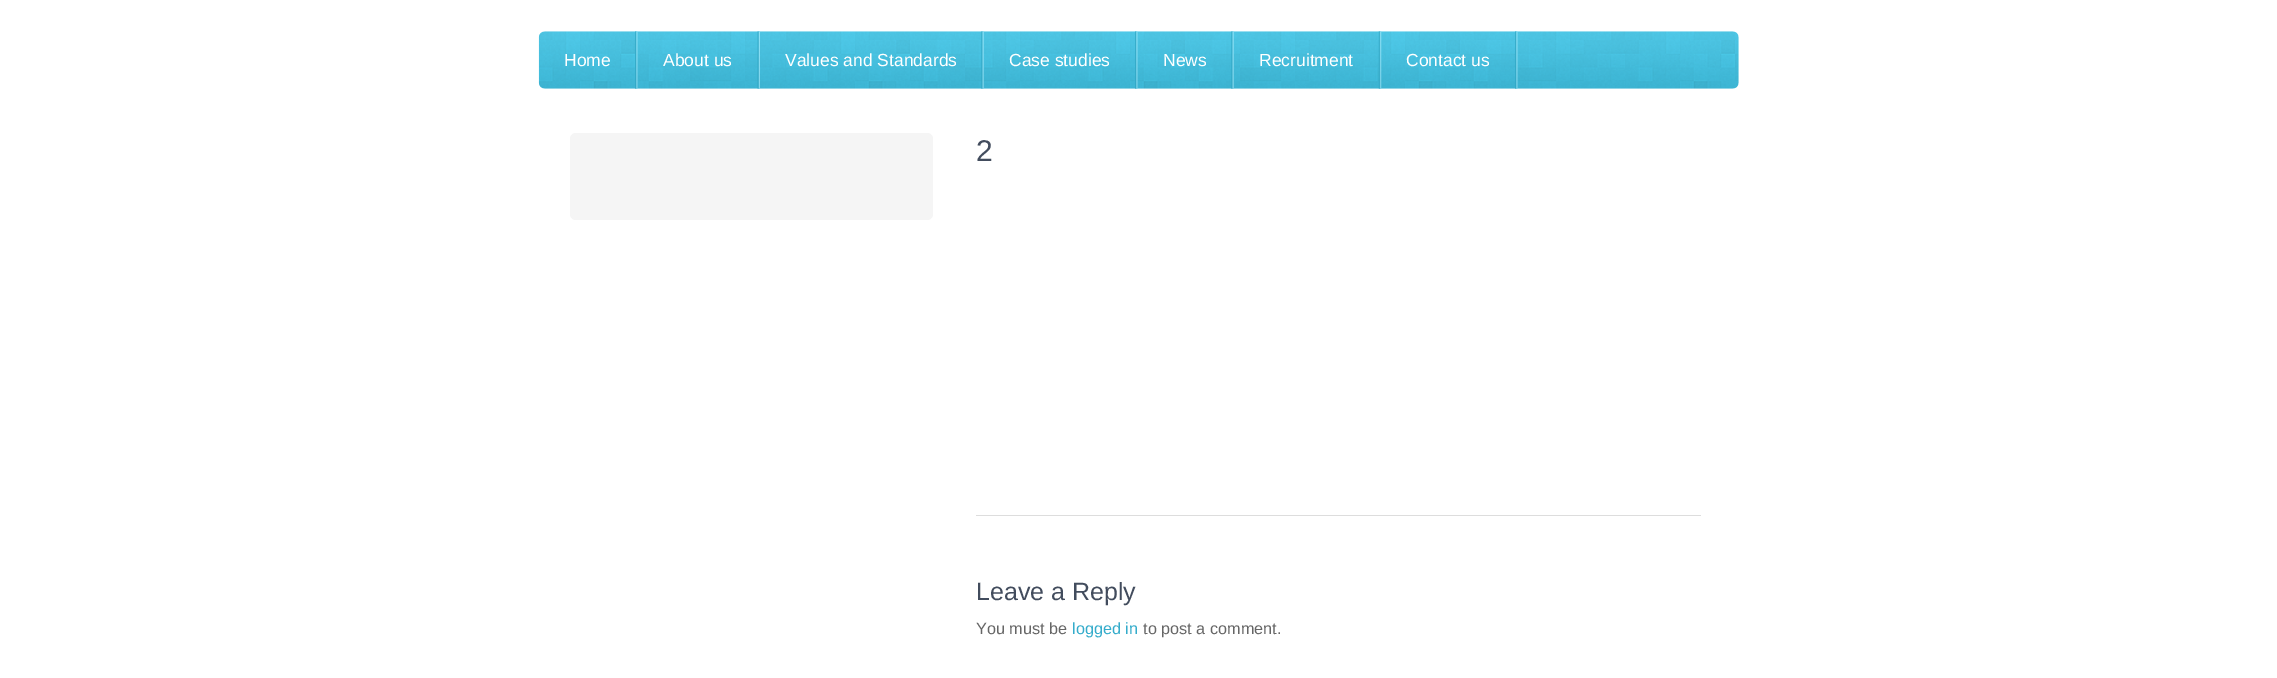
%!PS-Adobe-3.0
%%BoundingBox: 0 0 2277 678
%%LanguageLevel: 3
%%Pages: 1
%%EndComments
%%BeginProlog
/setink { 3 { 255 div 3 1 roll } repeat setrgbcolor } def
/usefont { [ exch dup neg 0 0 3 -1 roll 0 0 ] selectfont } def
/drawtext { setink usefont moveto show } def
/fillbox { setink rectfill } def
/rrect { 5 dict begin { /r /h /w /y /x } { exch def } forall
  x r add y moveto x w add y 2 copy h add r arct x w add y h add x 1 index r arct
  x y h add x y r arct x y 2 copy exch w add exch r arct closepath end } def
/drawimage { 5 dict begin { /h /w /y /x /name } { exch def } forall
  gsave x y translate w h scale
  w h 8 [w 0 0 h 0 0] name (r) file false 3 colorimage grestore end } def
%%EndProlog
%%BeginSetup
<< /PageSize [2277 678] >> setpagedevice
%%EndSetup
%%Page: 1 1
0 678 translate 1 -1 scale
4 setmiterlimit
0 0 2277 678 255 255 255 fillbox
(assets/img1.rgb) 538 31 1201 58 drawimage
(assets/img2.rgb) 635 31 3 58 drawimage
(Home) 564 66 /LiberationSans-Regular 17.5 255 255 255 drawtext
(assets/img3.rgb) 757 31 3 58 drawimage
(About us) 663 66 /LiberationSans-Regular 17.5 255 255 255 drawtext
(assets/img4.rgb) 981 31 3 58 drawimage
(Values and Standards) 785 66 /LiberationSans-Regular 17.5 255 255 255 drawtext
(assets/img5.rgb) 1135 31 3 58 drawimage
(Case studies) 1009 66 /LiberationSans-Regular 17.5 255 255 255 drawtext
(assets/img6.rgb) 1231 31 3 58 drawimage
(News) 1163 66 /LiberationSans-Regular 17.5 255 255 255 drawtext
(assets/img7.rgb) 1378 31 4 58 drawimage
(Recruitment) 1259 66 /LiberationSans-Regular 17.5 255 255 255 drawtext
(assets/img8.rgb) 1515 31 3 58 drawimage
(Contact us) 1406 66 /LiberationSans-Regular 17.5 255 255 255 drawtext
245 245 245 setink
570 133 363 87 6 rrect fill
976 515 725 1 221 221 221 fillbox
(2) 976 161 /LiberationSans-Regular 30 66 76 93 drawtext
(Leave a Reply) 976 600 /LiberationSans-Regular 25 66 76 93 drawtext
(You must be) 976 634 /LiberationSans-Regular 16.25 102 102 102 drawtext
(logged in) 1072 634 /LiberationSans-Regular 16.25 52 172 203 drawtext
(to post a comment.) 1143 634 /LiberationSans-Regular 16.25 102 102 102 drawtext
showpage
%%EOF
